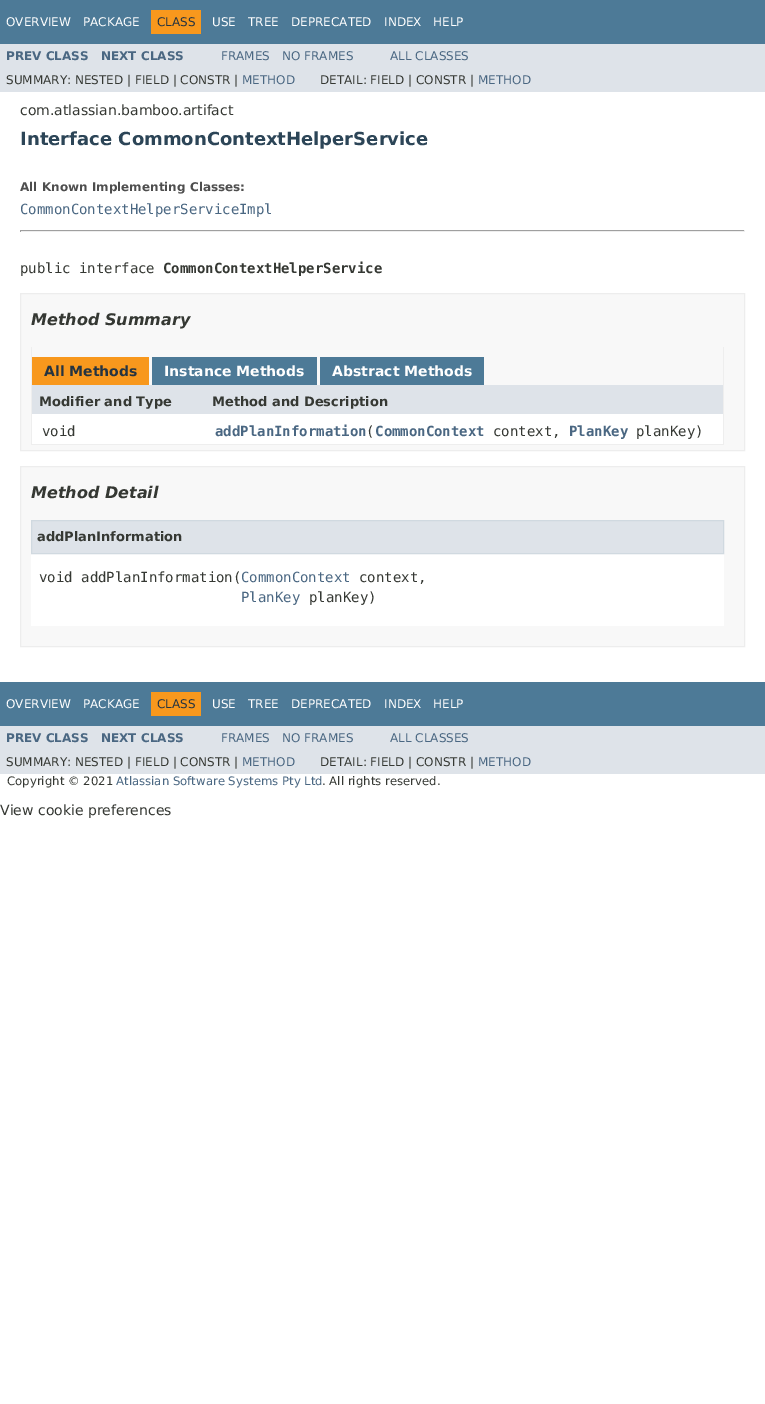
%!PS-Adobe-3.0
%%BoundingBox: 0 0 765 1404
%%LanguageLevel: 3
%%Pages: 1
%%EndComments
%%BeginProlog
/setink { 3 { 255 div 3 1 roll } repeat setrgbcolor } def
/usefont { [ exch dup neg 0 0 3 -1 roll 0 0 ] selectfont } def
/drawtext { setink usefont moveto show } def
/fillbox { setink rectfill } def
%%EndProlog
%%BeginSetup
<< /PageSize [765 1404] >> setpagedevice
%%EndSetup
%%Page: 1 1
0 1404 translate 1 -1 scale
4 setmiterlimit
0 0 765 1404 255 255 255 fillbox
0 0 765 44 77 122 151 fillbox
(OVERVIEW) 6 26 /DejaVuSans-Regular 12 255 255 255 drawtext
(PACKAGE) 83 26 /DejaVuSans-Regular 12 255 255 255 drawtext
151 10 50 24 248 152 29 fillbox
(CLASS) 157 26 /DejaVuSans-Regular 12 37 52 65 drawtext
(USE) 212 26 /DejaVuSans-Regular 12 255 255 255 drawtext
(TREE) 248 26 /DejaVuSans-Regular 12 255 255 255 drawtext
(DEPRECATED) 291 26 /DejaVuSans-Regular 12 255 255 255 drawtext
(INDEX) 384 26 /DejaVuSans-Regular 12 255 255 255 drawtext
(HELP) 433 26 /DejaVuSans-Regular 12 255 255 255 drawtext
0 44 765 48 222 227 233 fillbox
(PREV CLASS) 6 60 /DejaVuSans-Bold 12 74 103 130 drawtext
(NEXT CLASS) 101 60 /DejaVuSans-Bold 12 74 103 130 drawtext
(FRAMES) 221 60 /DejaVuSans-Regular 12 74 103 130 drawtext
(NO FRAMES) 282 60 /DejaVuSans-Regular 12 74 103 130 drawtext
(ALL CLASSES) 390 60 /DejaVuSans-Regular 12 74 103 130 drawtext
(SUMMARY: NESTED | FIELD | CONSTR |) 6 84 /DejaVuSans-Regular 12 53 56 51 drawtext
(METHOD) 242 84 /DejaVuSans-Regular 12 74 103 130 drawtext
(DETAIL: FIELD | CONSTR |) 320 84 /DejaVuSans-Regular 12 53 56 51 drawtext
(METHOD) 478 84 /DejaVuSans-Regular 12 74 103 130 drawtext
(com.atlassian.bamboo.artifact) 20 115 /DejaVuSans-Regular 14 53 56 51 drawtext
(Interface CommonContextHelperService) 20 145 /DejaVuSans-Bold 18 44 69 87 drawtext
(All Known Implementing Classes:) 20 191 /DejaVuSans-Bold 12 78 78 78 drawtext
(CommonContextHelperServiceImpl) 20 214 /DejaVuSansMono-Regular 14 74 103 130 drawtext
20 230 725 1 159 159 159 fillbox
744 230 1 2 238 238 238 fillbox
20 231 725 1 238 238 238 fillbox
20 230 1 2 159 159 159 fillbox
(public interface) 20 273 /DejaVuSansMono-Regular 14 53 56 51 drawtext
(CommonContextHelperService) 163 273 /DejaVuSansMono-Bold 14 53 56 51 drawtext
248 248 248 setink
20.5 293.5 moveto 744.5 293.5 lineto 744.5 450.5 lineto 20.5 450.5 lineto closepath gsave fill grestore
237 237 237 setink
stroke
(Method Summary) 31 325 /DejaVuSans-BoldItalic 16 53 56 51 drawtext
723 347 1 98 238 238 238 fillbox
31 444 693 1 238 238 238 fillbox
31 347 1 98 238 238 238 fillbox
32 357 117 28 248 152 29 fillbox
(All Methods) 44 376 /DejaVuSans-Bold 14 37 52 65 drawtext
152 357 165 28 77 122 151 fillbox
(Instance Methods) 164 376 /DejaVuSans-Bold 14 255 255 255 drawtext
320 357 164 28 77 122 151 fillbox
(Abstract Methods) 332 376 /DejaVuSans-Bold 14 255 255 255 drawtext
32 385 691 29 222 227 233 fillbox
(Modifier and Type) 39 406 /DejaVuSans-Bold 13 53 56 51 drawtext
(Method and Description) 212 406 /DejaVuSans-Bold 13 53 56 51 drawtext
32 414 691 30 255 255 255 fillbox
(void) 42 436 /DejaVuSansMono-Regular 14 53 56 51 drawtext
(addPlanInformation CommonContext) 215 436 /DejaVuSansMono-Bold 14 74 103 130 drawtext
(\() 366 436 /DejaVuSansMono-Regular 14 53 56 51 drawtext
(context,) 493 436 /DejaVuSansMono-Regular 14 53 56 51 drawtext
(PlanKey) 569 436 /DejaVuSansMono-Bold 14 74 103 130 drawtext
(planKey\)) 636 436 /DejaVuSansMono-Regular 14 53 56 51 drawtext
248 248 248 setink
20.5 466.5 moveto 744.5 466.5 lineto 744.5 646.5 lineto 20.5 646.5 lineto closepath gsave fill grestore
237 237 237 setink
stroke
(Method Detail) 31 498 /DejaVuSans-BoldItalic 16 53 56 51 drawtext
31 554 693 72 255 255 255 fillbox
222 227 233 setink
31.5 520.5 moveto 723.5 520.5 lineto 723.5 553.5 lineto 31.5 553.5 lineto closepath gsave fill grestore
208 217 224 setink
stroke
(addPlanInformation) 37 541 /DejaVuSans-Bold 13 53 56 51 drawtext
(void addPlanInformation\() 39 582 /DejaVuSansMono-Regular 14 53 56 51 drawtext
(CommonContext) 241 582 /DejaVuSansMono-Regular 14 74 103 130 drawtext
(context,) 359 582 /DejaVuSansMono-Regular 14 53 56 51 drawtext
(PlanKey) 241 602 /DejaVuSansMono-Regular 14 74 103 130 drawtext
(planKey\)) 309 602 /DejaVuSansMono-Regular 14 53 56 51 drawtext
0 682 765 44 77 122 151 fillbox
(OVERVIEW) 6 708 /DejaVuSans-Regular 12 255 255 255 drawtext
(PACKAGE) 83 708 /DejaVuSans-Regular 12 255 255 255 drawtext
151 692 50 24 248 152 29 fillbox
(CLASS) 157 708 /DejaVuSans-Regular 12 37 52 65 drawtext
(USE) 212 708 /DejaVuSans-Regular 12 255 255 255 drawtext
(TREE) 248 708 /DejaVuSans-Regular 12 255 255 255 drawtext
(DEPRECATED) 291 708 /DejaVuSans-Regular 12 255 255 255 drawtext
(INDEX) 384 708 /DejaVuSans-Regular 12 255 255 255 drawtext
(HELP) 433 708 /DejaVuSans-Regular 12 255 255 255 drawtext
0 726 765 48 222 227 233 fillbox
(PREV CLASS) 6 742 /DejaVuSans-Bold 12 74 103 130 drawtext
(NEXT CLASS) 101 742 /DejaVuSans-Bold 12 74 103 130 drawtext
(FRAMES) 221 742 /DejaVuSans-Regular 12 74 103 130 drawtext
(NO FRAMES) 282 742 /DejaVuSans-Regular 12 74 103 130 drawtext
(ALL CLASSES) 390 742 /DejaVuSans-Regular 12 74 103 130 drawtext
(SUMMARY: NESTED | FIELD | CONSTR |) 6 766 /DejaVuSans-Regular 12 53 56 51 drawtext
(METHOD) 242 766 /DejaVuSans-Regular 12 74 103 130 drawtext
(DETAIL: FIELD | CONSTR |) 320 766 /DejaVuSans-Regular 12 53 56 51 drawtext
(METHOD) 478 766 /DejaVuSans-Regular 12 74 103 130 drawtext
(Copyright © 2021) 7 785 /DejaVuSans-Regular 11.7 53 56 51 drawtext
(Atlassian Software Systems Pty Ltd) 116 785 /DejaVuSans-Regular 11.7 74 103 130 drawtext
(. All rights reserved.) 322 785 /DejaVuSans-Regular 11.7 53 56 51 drawtext
(View cookie preferences) 0 815 /DejaVuSans-Regular 14 53 56 51 drawtext
showpage
%%EOF
